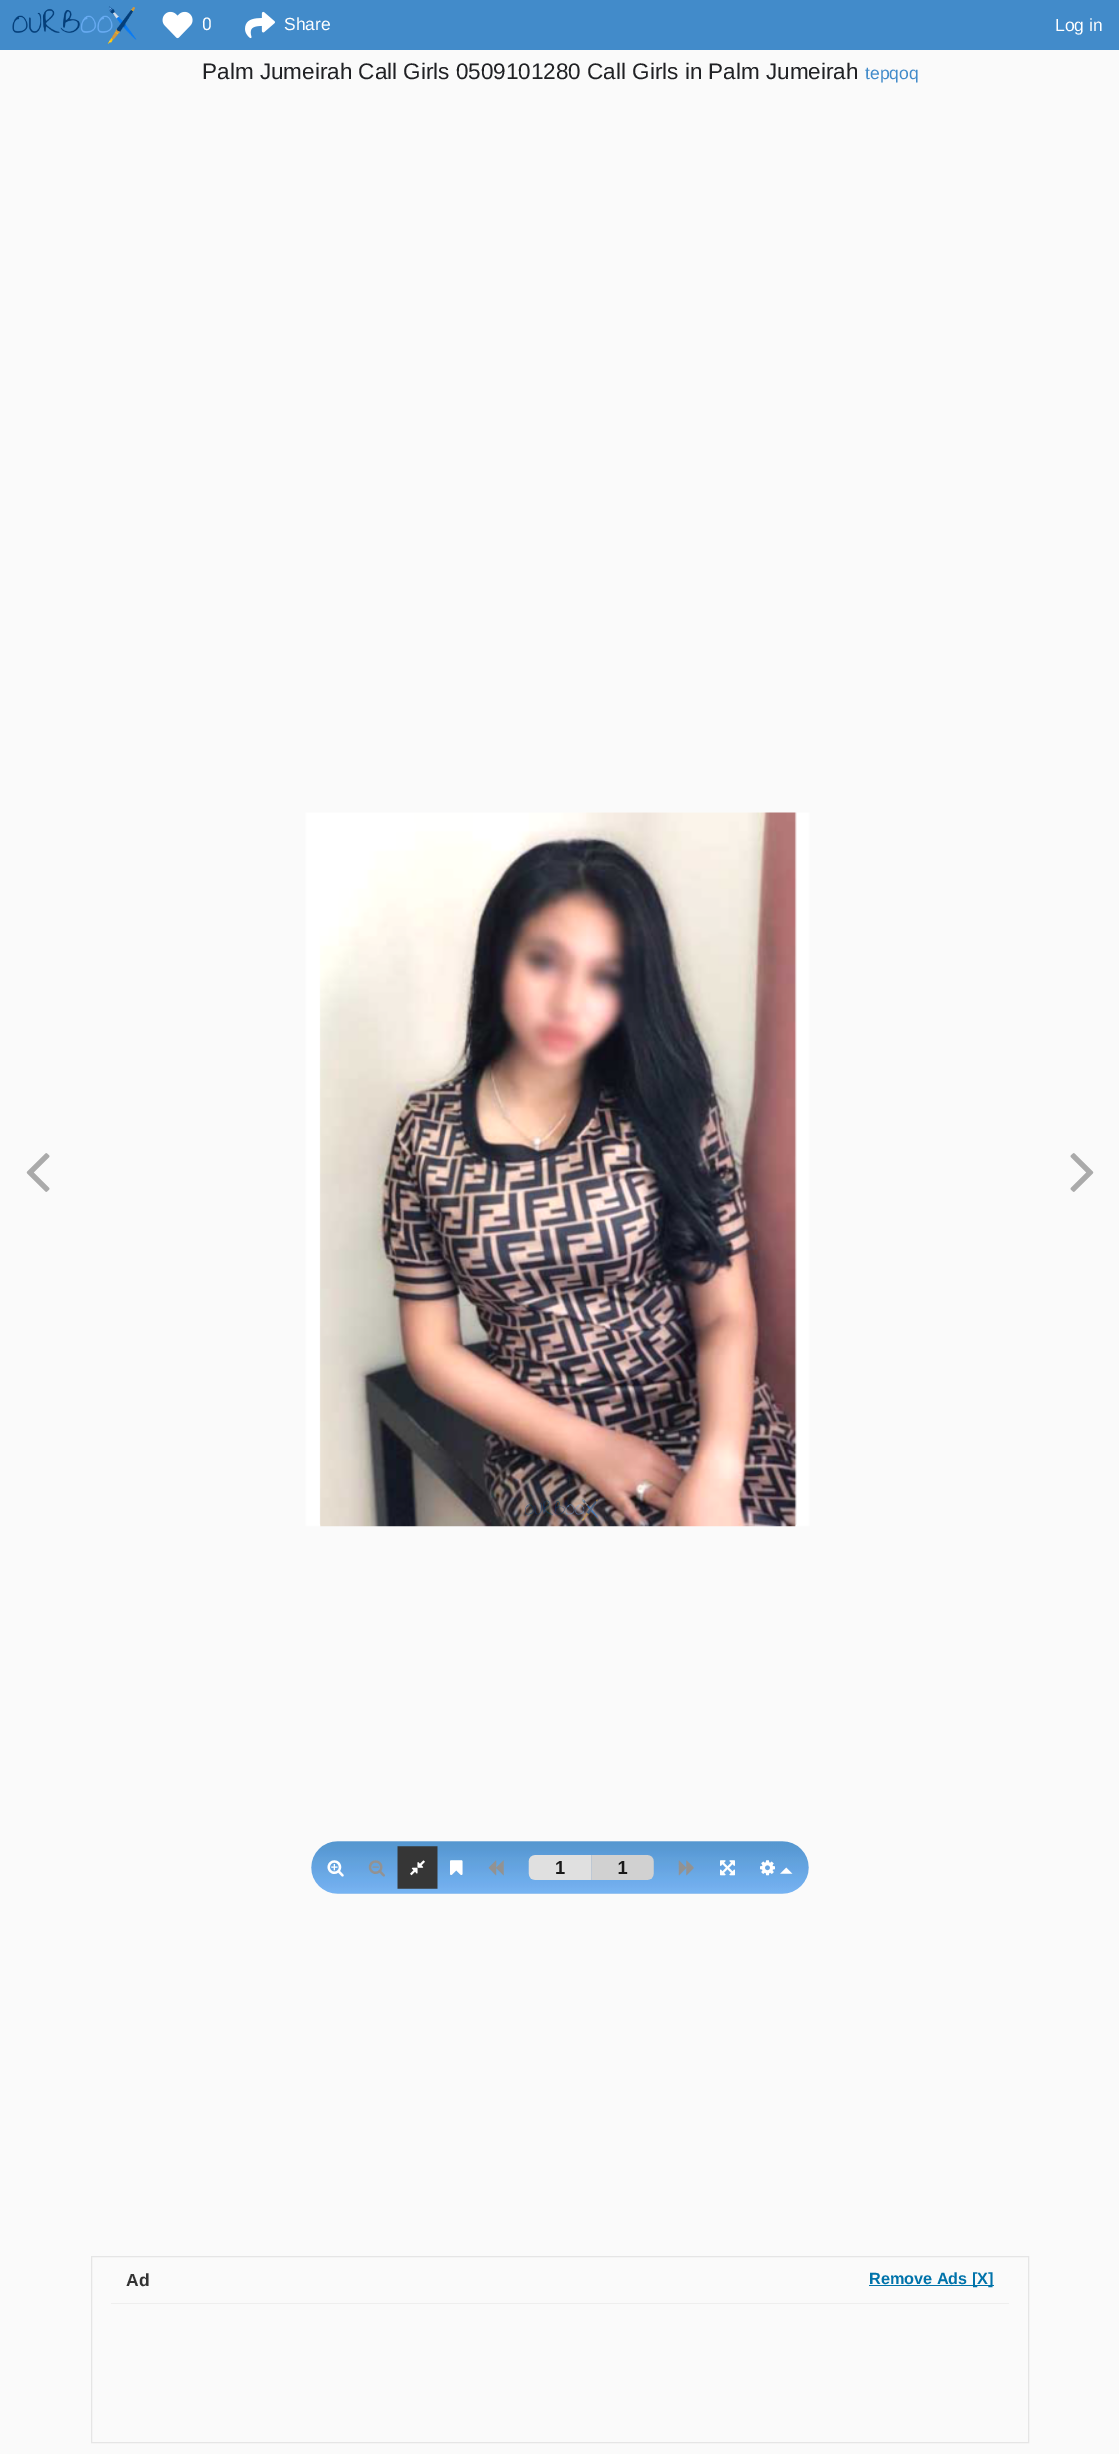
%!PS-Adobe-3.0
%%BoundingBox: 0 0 1119 2454
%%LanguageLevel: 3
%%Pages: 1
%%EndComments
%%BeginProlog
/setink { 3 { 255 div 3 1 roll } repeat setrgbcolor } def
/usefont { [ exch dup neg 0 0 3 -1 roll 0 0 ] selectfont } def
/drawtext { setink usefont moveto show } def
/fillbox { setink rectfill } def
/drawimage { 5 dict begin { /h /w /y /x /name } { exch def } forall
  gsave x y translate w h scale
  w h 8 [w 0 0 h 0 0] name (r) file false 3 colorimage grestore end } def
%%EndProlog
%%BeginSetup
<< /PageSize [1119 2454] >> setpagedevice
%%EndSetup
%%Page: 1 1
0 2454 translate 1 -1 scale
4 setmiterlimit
0 0 1119 2454 250 250 250 fillbox
0 0 1119 50 66 139 202 fillbox
(assets/img1.rgb) 12 6 125 38 drawimage
(assets/img2.rgb) 162 11 31 28 drawimage
(0) 202 30 /Roboto-Regular 17.5 255 255 255 drawtext
(assets/img3.rgb) 245 11 30 28 drawimage
(Share) 284 30 /LiberationSans-Regular 17.5 255 255 255 drawtext
(Log in) 1055 31 /LiberationSans-Regular 17.5 255 255 255 drawtext
(Palm Jumeirah Call Girls 0509101280 Call Girls in Palm Jumeirah) 202 79 /LiberationSans-Regular 22.5 32 33 36 drawtext
(tepqoq) 865 79 /LiberationSans-Regular 17.5 66 139 202 drawtext
(assets/img4.rgb) 26 812 1068 1082 drawimage
229 229 229 setink
91.5 2256.5 937 186 rectstroke
111 2303 898 1 238 238 238 fillbox
(Ad) 126 2286 /LiberationSans-Bold 17.5 51 51 51 drawtext
869 2285 125 1 0 115 170 fillbox
(Remove Ads [X]) 869 2284 /LiberationSans-Bold 16.25 0 115 170 drawtext
showpage
%%EOF
